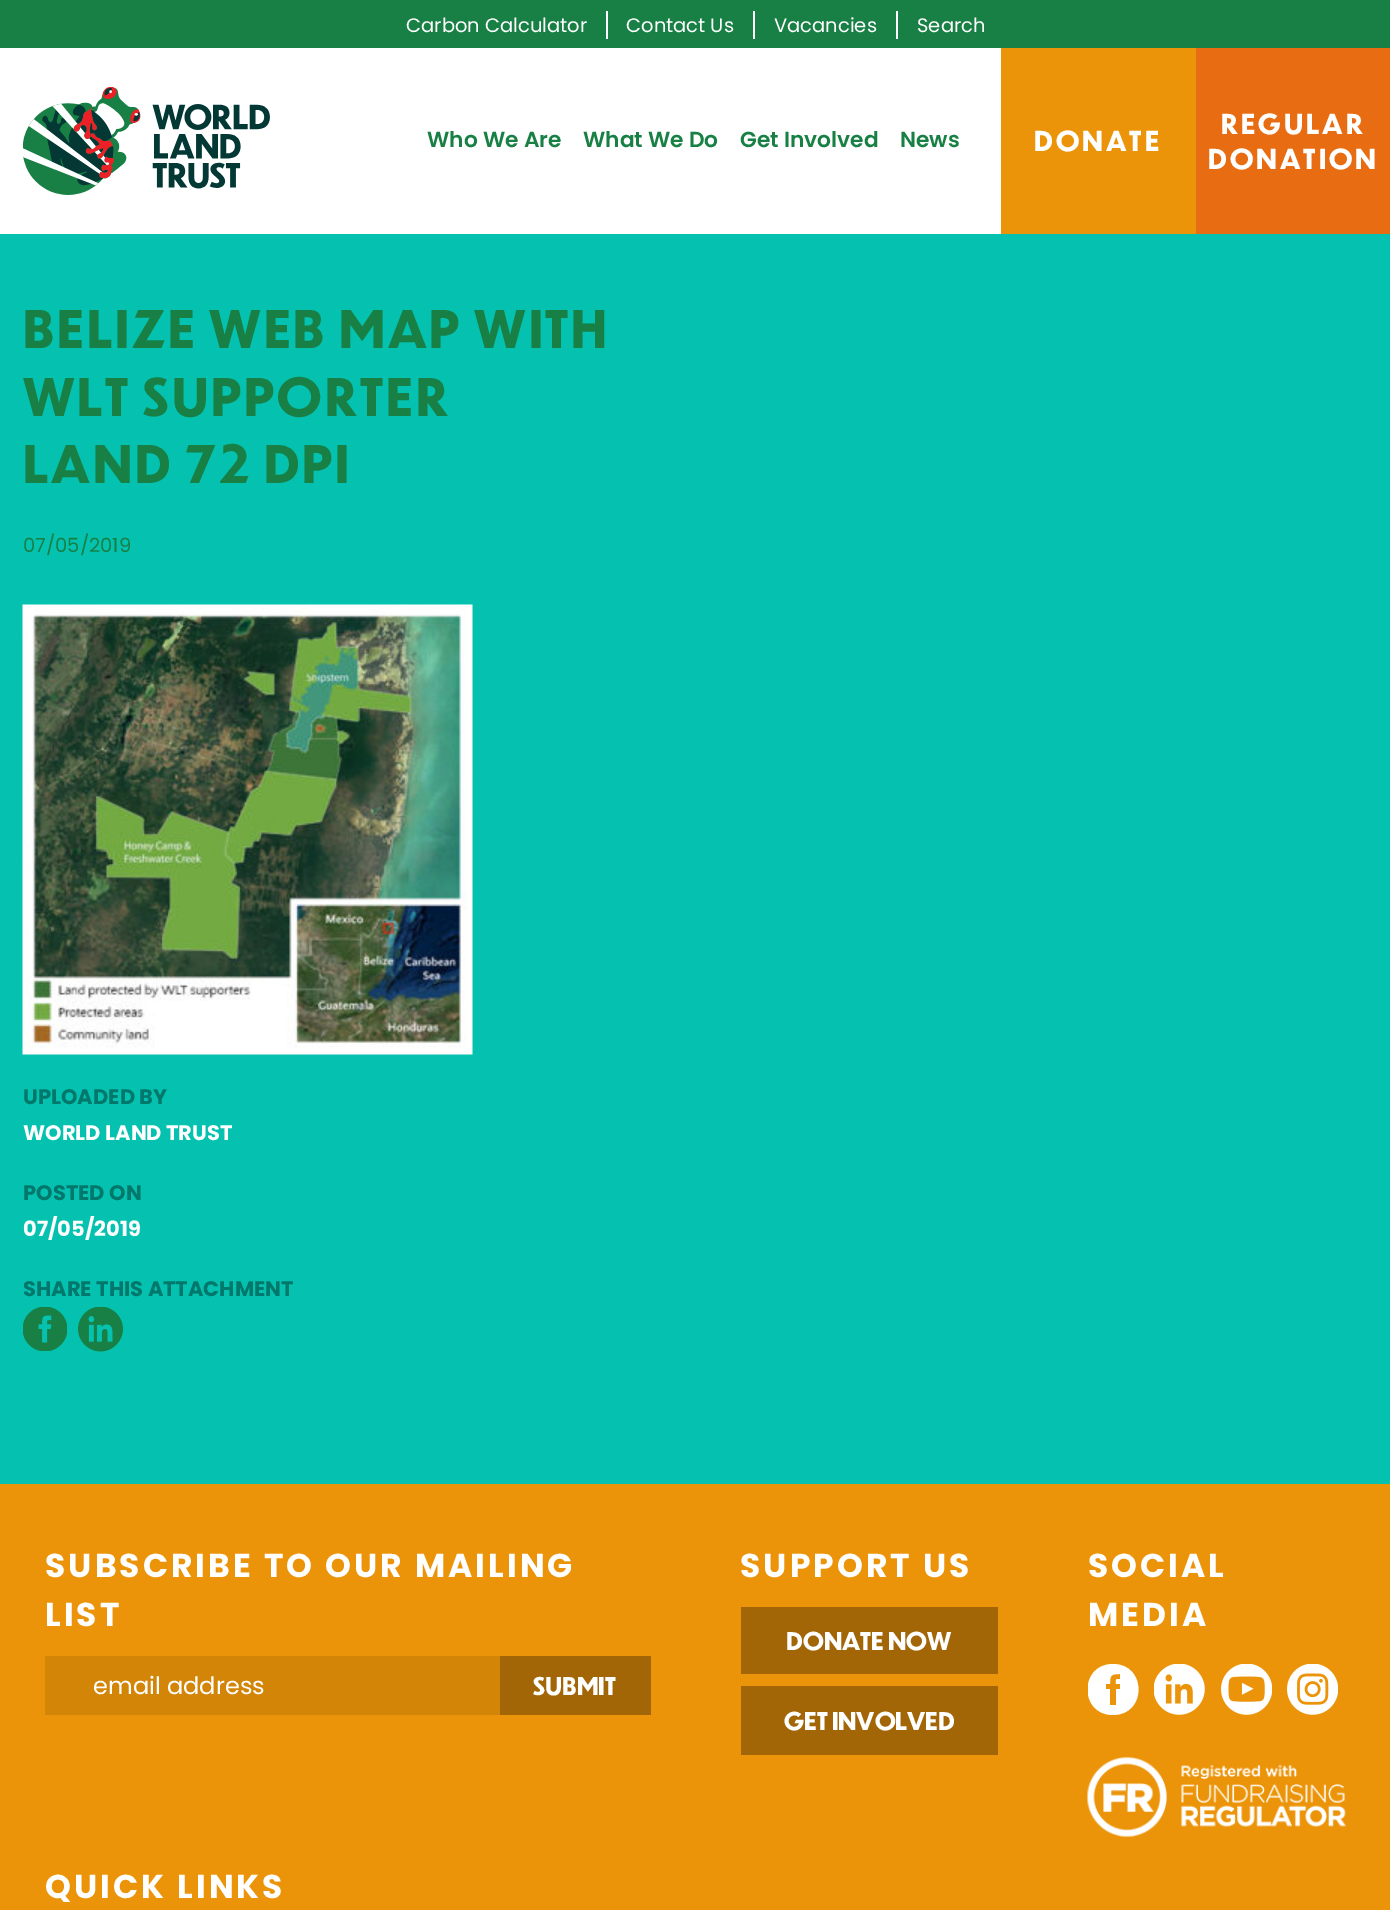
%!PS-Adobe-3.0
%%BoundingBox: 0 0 1390 1910
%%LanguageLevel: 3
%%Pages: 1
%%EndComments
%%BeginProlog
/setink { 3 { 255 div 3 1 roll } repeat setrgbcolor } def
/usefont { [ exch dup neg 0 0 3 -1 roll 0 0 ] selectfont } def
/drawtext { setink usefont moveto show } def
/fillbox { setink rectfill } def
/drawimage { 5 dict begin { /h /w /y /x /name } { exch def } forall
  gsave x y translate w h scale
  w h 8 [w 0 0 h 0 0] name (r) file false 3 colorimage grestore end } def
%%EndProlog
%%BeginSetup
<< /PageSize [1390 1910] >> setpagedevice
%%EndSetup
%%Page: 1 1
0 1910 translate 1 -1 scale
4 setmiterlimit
0 0 1390 1910 255 255 255 fillbox
0 0 1390 48 24 128 69 fillbox
606 11 2 28 255 255 255 fillbox
(Carbon Calculator) 406 32 /Poppins-Regular 19.5 255 255 255 drawtext
753 11 2 28 255 255 255 fillbox
(Contact Us) 626 32 /Poppins-Regular 19.5 255 255 255 drawtext
896 11 2 28 255 255 255 fillbox
(Vacancies) 774 32 /Poppins-Regular 19.5 255 255 255 drawtext
(Search) 917 32 /Poppins-Regular 19.5 255 255 255 drawtext
(assets/img1.rgb) 23 87 247 108 drawimage
(Who We Are) 427 147 /Poppins-SemiBold 21.75 24 128 69 drawtext
(What We Do) 583 147 /Poppins-SemiBold 21.75 24 128 69 drawtext
(Get Involved) 740 147 /Poppins-SemiBold 21.75 24 128 69 drawtext
(News) 900 147 /Poppins-SemiBold 21.75 24 128 69 drawtext
1001 48 195 186 236 148 9 fillbox
/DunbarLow-Bold 27 usefont
255 255 255 setink
1034 151 moveto 3 0 (DONATE) ashow
1196 48 194 186 232 109 18 fillbox
255 255 255 setink
1221 134 moveto 3 0 (REGULAR) ashow
1208 169 moveto 3 0 (DONATION) ashow
0 234 1390 1250 4 194 175 fillbox
/DunbarLow-Bold 51 usefont
24 128 69 setink
23 348 moveto 3 0 (BELIZE WEB MAP WITH) ashow
23 416 moveto 3 0 (WLT SUPPORTER) ashow
23 483 moveto 3 0 (LAND 72 DPI) ashow
(07/05/2019) 23 552 /Poppins-Regular 19.5 24 128 69 drawtext
(assets/img2.rgb) 22 604 451 451 drawimage
(UPLOADED BY) 23 1104 /Poppins-Bold 21 2 119 107 drawtext
(WORLD LAND TRUST) 23 1140 /Poppins-Bold 21 255 255 255 drawtext
(POSTED ON) 23 1200 /Poppins-Bold 21 2 119 107 drawtext
(07/05/2019) 23 1236 /Poppins-Bold 21 255 255 255 drawtext
(SHARE THIS ATTACHMENT) 23 1296 /Poppins-Bold 21 2 119 107 drawtext
(assets/img3.rgb) 23 1307 44 44 drawimage
(assets/img4.rgb) 78 1307 45 45 drawimage
0 1484 1390 426 236 148 9 fillbox
/Poppins-Bold 33 usefont
255 255 255 setink
45 1577 moveto 3 0 (SUBSCRIBE TO OUR MAILING) ashow
45 1626 moveto 3 0 (LIST) ashow
45 1656 455 59 211 133 8 fillbox
(email address) 93 1694 /Poppins-Regular 24 255 255 255 drawtext
500 1656 151 59 162 102 6 fillbox
(SUBMIT) 533 1695 /DunbarLow-Bold 24 255 255 255 drawtext
/Poppins-Bold 33 usefont
740 1577 moveto 3 0 (SUPPORT US) ashow
741 1607 257 67 162 102 6 fillbox
(DONATE NOW) 786 1650 /DunbarLow-Bold 24 255 255 255 drawtext
741 1686 257 69 162 102 6 fillbox
(GET INVOLVED) 784 1730 /DunbarLow-Bold 24 255 255 255 drawtext
/Poppins-Bold 33 usefont
1088 1577 moveto 3 0 (SOCIAL) ashow
1088 1626 moveto 3 0 (MEDIA) ashow
gsave
1088 1664 51 51 rectclip
1113 1664 moveto 1079 1664 1079 1715 1113 1715 curveto 1147 1715 1147 1664 1113 1664 curveto 1120 1689 moveto 1116 1689 lineto 1116 1705 lineto 1110 1705 lineto 1110 1689 lineto 1106 1689 lineto 1106 1684 lineto 1110 1684 lineto 1110 1675 1111 1674 1120 1674 curveto 1120 1679 lineto 1115 1679 1116 1679 1116 1684 curveto 1120 1684 lineto closepath fill
grestore
(assets/img5.rgb) 1154 1664 51 51 drawimage
(assets/img6.rgb) 1221 1664 51 51 drawimage
(assets/img7.rgb) 1287 1664 51 51 drawimage
(assets/img8.rgb) 1087 1757 259 80 drawimage
45 1898 moveto 3 0 (QUICK LINKS) ashow
showpage
%%EOF
